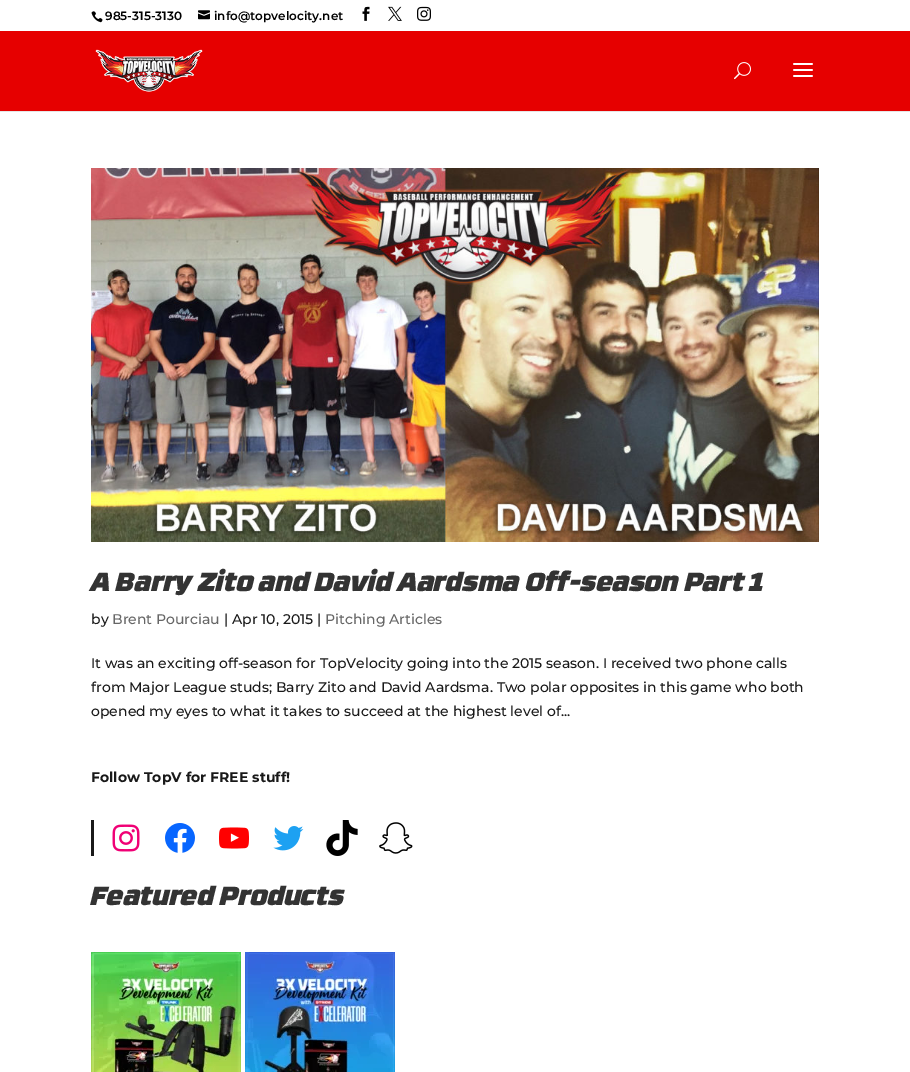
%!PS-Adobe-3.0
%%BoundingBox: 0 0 910 1072
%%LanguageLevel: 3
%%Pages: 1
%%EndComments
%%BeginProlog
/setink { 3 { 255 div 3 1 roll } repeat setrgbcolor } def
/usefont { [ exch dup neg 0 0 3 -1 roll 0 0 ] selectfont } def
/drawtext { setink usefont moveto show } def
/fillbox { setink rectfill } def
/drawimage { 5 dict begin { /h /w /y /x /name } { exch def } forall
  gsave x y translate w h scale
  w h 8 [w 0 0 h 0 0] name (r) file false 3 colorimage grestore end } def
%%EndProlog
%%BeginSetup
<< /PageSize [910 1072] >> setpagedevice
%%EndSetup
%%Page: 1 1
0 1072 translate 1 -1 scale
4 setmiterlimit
0 0 910 1072 255 255 255 fillbox
(assets/img1.rgb) 91 11 12 12 drawimage
(985-315-3130) 105 20 /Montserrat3-Thin 12 0 0 0 drawtext
(assets/img2.rgb) 198 10 12 10 drawimage
(info@topvelocity.net) 214 20 /Montserrat3-Thin 12 0 0 0 drawtext
(assets/img3.rgb) 362 6 8 15 drawimage
(assets/img4.rgb) 388 6 14 15 drawimage
(assets/img5.rgb) 417 6 14 15 drawimage
0 111 910 1 230 230 230 fillbox
0 31 910 80 230 0 0 fillbox
(assets/img6.rgb) 95 49 108 43 drawimage
(assets/img7.rgb) 734 62 17 18 drawimage
(assets/img8.rgb) 793 63 20 14 drawimage
(assets/img9.rgb) 91 168 728 374 drawimage
(A Barry Zito and David Aardsma Off-season Part 1) 91 591 /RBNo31-Regular 26 51 51 51 drawtext
(by) 91 624 /Montserrat-Thin 14 25 25 25 drawtext
(Brent Pourciau) 112 624 /Montserrat-Thin 14 102 102 102 drawtext
(| Apr 10, 2015 |) 224 624 /Montserrat-Thin 14 25 25 25 drawtext
(Pitching Articles) 325 624 /Montserrat-Thin 14 102 102 102 drawtext
(It was an exciting off-season for TopVelocity going into the 2015 season. I received two phone calls) 91 668 /Montserrat-Thin 14 25 25 25 drawtext
(from Major League studs; Barry Zito and David Aardsma. Two polar opposites in this game who both) 91 692 /Montserrat-Thin 14 25 25 25 drawtext
(opened my eyes to what it takes to succeed at the highest level of...) 91 716 /Montserrat-Thin 14 25 25 25 drawtext
(Follow TopV for FREE stuff!) 91 782 /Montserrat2-Thin 14 25 25 25 drawtext
91 820 3 36 25 25 25 fillbox
(assets/img10.rgb) 112 824 28 28 drawimage
(assets/img11.rgb) 165 823 30 30 drawimage
(assets/img12.rgb) 219 827 30 22 drawimage
(assets/img13.rgb) 273 826 31 25 drawimage
(assets/img14.rgb) 326 820 32 36 drawimage
(assets/img15.rgb) 379 822 34 32 drawimage
(Featured Products) 91 905 /RBNo31-Regular 26 51 51 51 drawtext
(assets/img16.rgb) 91 952 150 120 drawimage
(assets/img17.rgb) 245 952 150 120 drawimage
showpage
%%EOF
